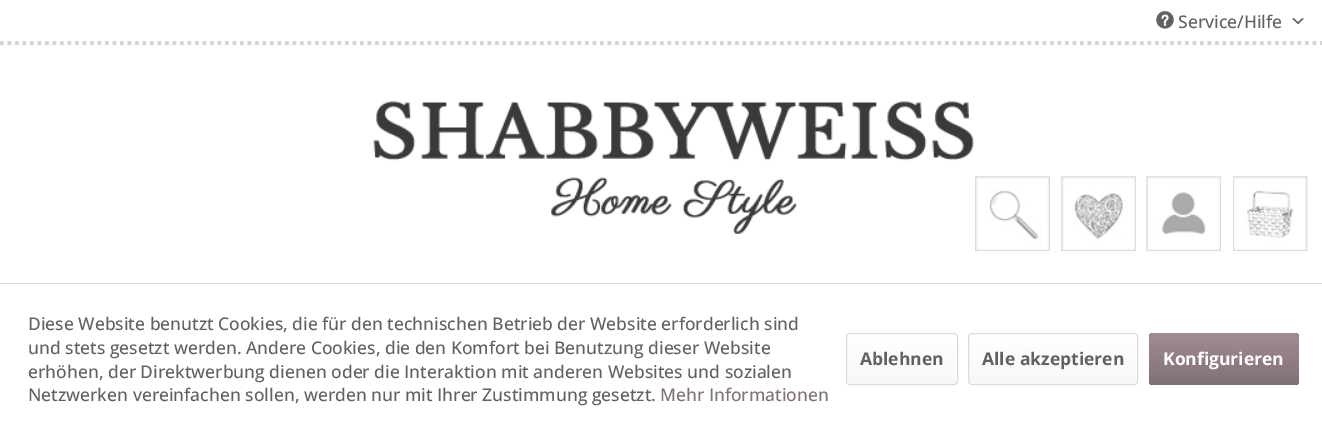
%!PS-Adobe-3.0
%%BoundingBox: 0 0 1322 433
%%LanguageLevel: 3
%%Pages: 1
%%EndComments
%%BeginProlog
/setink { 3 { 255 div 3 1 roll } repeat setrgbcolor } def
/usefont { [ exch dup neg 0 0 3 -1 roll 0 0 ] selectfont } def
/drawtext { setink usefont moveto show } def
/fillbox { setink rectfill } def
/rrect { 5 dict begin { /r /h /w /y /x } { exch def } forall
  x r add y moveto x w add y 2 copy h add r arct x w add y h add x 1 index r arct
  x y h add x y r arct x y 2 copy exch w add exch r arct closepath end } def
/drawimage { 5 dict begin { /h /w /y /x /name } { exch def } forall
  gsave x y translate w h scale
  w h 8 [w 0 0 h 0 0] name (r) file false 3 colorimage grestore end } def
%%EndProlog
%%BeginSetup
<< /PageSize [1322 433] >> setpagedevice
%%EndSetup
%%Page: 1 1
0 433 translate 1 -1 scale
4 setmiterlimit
0 0 1322 433 255 255 255 fillbox
212 212 212 setink
3.8 setlinewidth
[3.75 3.75] 0 setdash
0 43 moveto 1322.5 43 lineto stroke
(assets/img1.rgb) 1156 11 18 18 drawimage
(Service/Hilfe) 1178 28 /OpenSans-Medium 17.5 97 97 97 drawtext
(assets/img2.rgb) 1292 17 12 8 drawimage
(assets/img3.rgb) 373 101 601 133 drawimage
(assets/img4.rgb) 975 176 75 75 drawimage
(assets/img5.rgb) 1061 176 75 75 drawimage
(assets/img6.rgb) 1146 176 75 75 drawimage
(assets/img7.rgb) 1233 176 75 75 drawimage
0 283 1322 1 218 218 229 fillbox
(Diese Website benutzt Cookies, die für den technischen Betrieb der Website erforderlich sind) 28 330 /OpenSans-Medium 17.5 97 97 97 drawtext
(und stets gesetzt werden. Andere Cookies, die den Komfort bei Benutzung dieser Website) 28 354 /OpenSans-Medium 17.5 97 97 97 drawtext
(erhöhen, der Direktwerbung dienen oder die Interaktion mit anderen Websites und sozialen) 28 378 /OpenSans-Medium 17.5 97 97 97 drawtext
(Netzwerken vereinfachen sollen, werden nur mit Ihrer Zustimmung gesetzt.) 28 401 /OpenSans-Medium 17.5 97 97 97 drawtext
(Mehr Informationen) 660 401 /OpenSans-Medium 17.5 128 113 118 drawtext
gsave 848 334 108 50 2.5 rrect clip newpath
<< /ShadingType 2 /ColorSpace /DeviceRGB /Coords [902 334 902 384] /Extend [true true] /Function << /FunctionType 2 /Domain [0 1] /C0 [1 1 1] /C1 [0.973 0.973 0.98] /N 1 >> >> shfill grestore
218 218 229 setink
1 setlinewidth
[] 0 setdash
846.5 333.5 111 51 3.5 rrect stroke
(Ablehnen) 860 365 /OpenSans-Bold 17.5 97 97 97 drawtext
gsave 969 334 167 50 2.5 rrect clip newpath
<< /ShadingType 2 /ColorSpace /DeviceRGB /Coords [1053 334 1053 384] /Extend [true true] /Function << /FunctionType 2 /Domain [0 1] /C0 [1 1 1] /C1 [0.973 0.973 0.98] /N 1 >> >> shfill grestore
218 218 229 setink
968.5 333.5 169 51 3.5 rrect stroke
(Alle akzeptieren) 982 365 /OpenSans-Bold 17.5 97 97 97 drawtext
gsave 1149 333 150 52 4 rrect clip newpath
<< /ShadingType 2 /ColorSpace /DeviceRGB /Coords [1224 333 1224 385] /Extend [true true] /Function << /FunctionType 2 /Domain [0 1] /C0 [0.639 0.545 0.576] /C1 [0.502 0.443 0.463] /N 1 >> >> shfill grestore
(Konfigurieren) 1163 365 /OpenSans-Bold 17.5 255 255 255 drawtext
showpage
%%EOF
